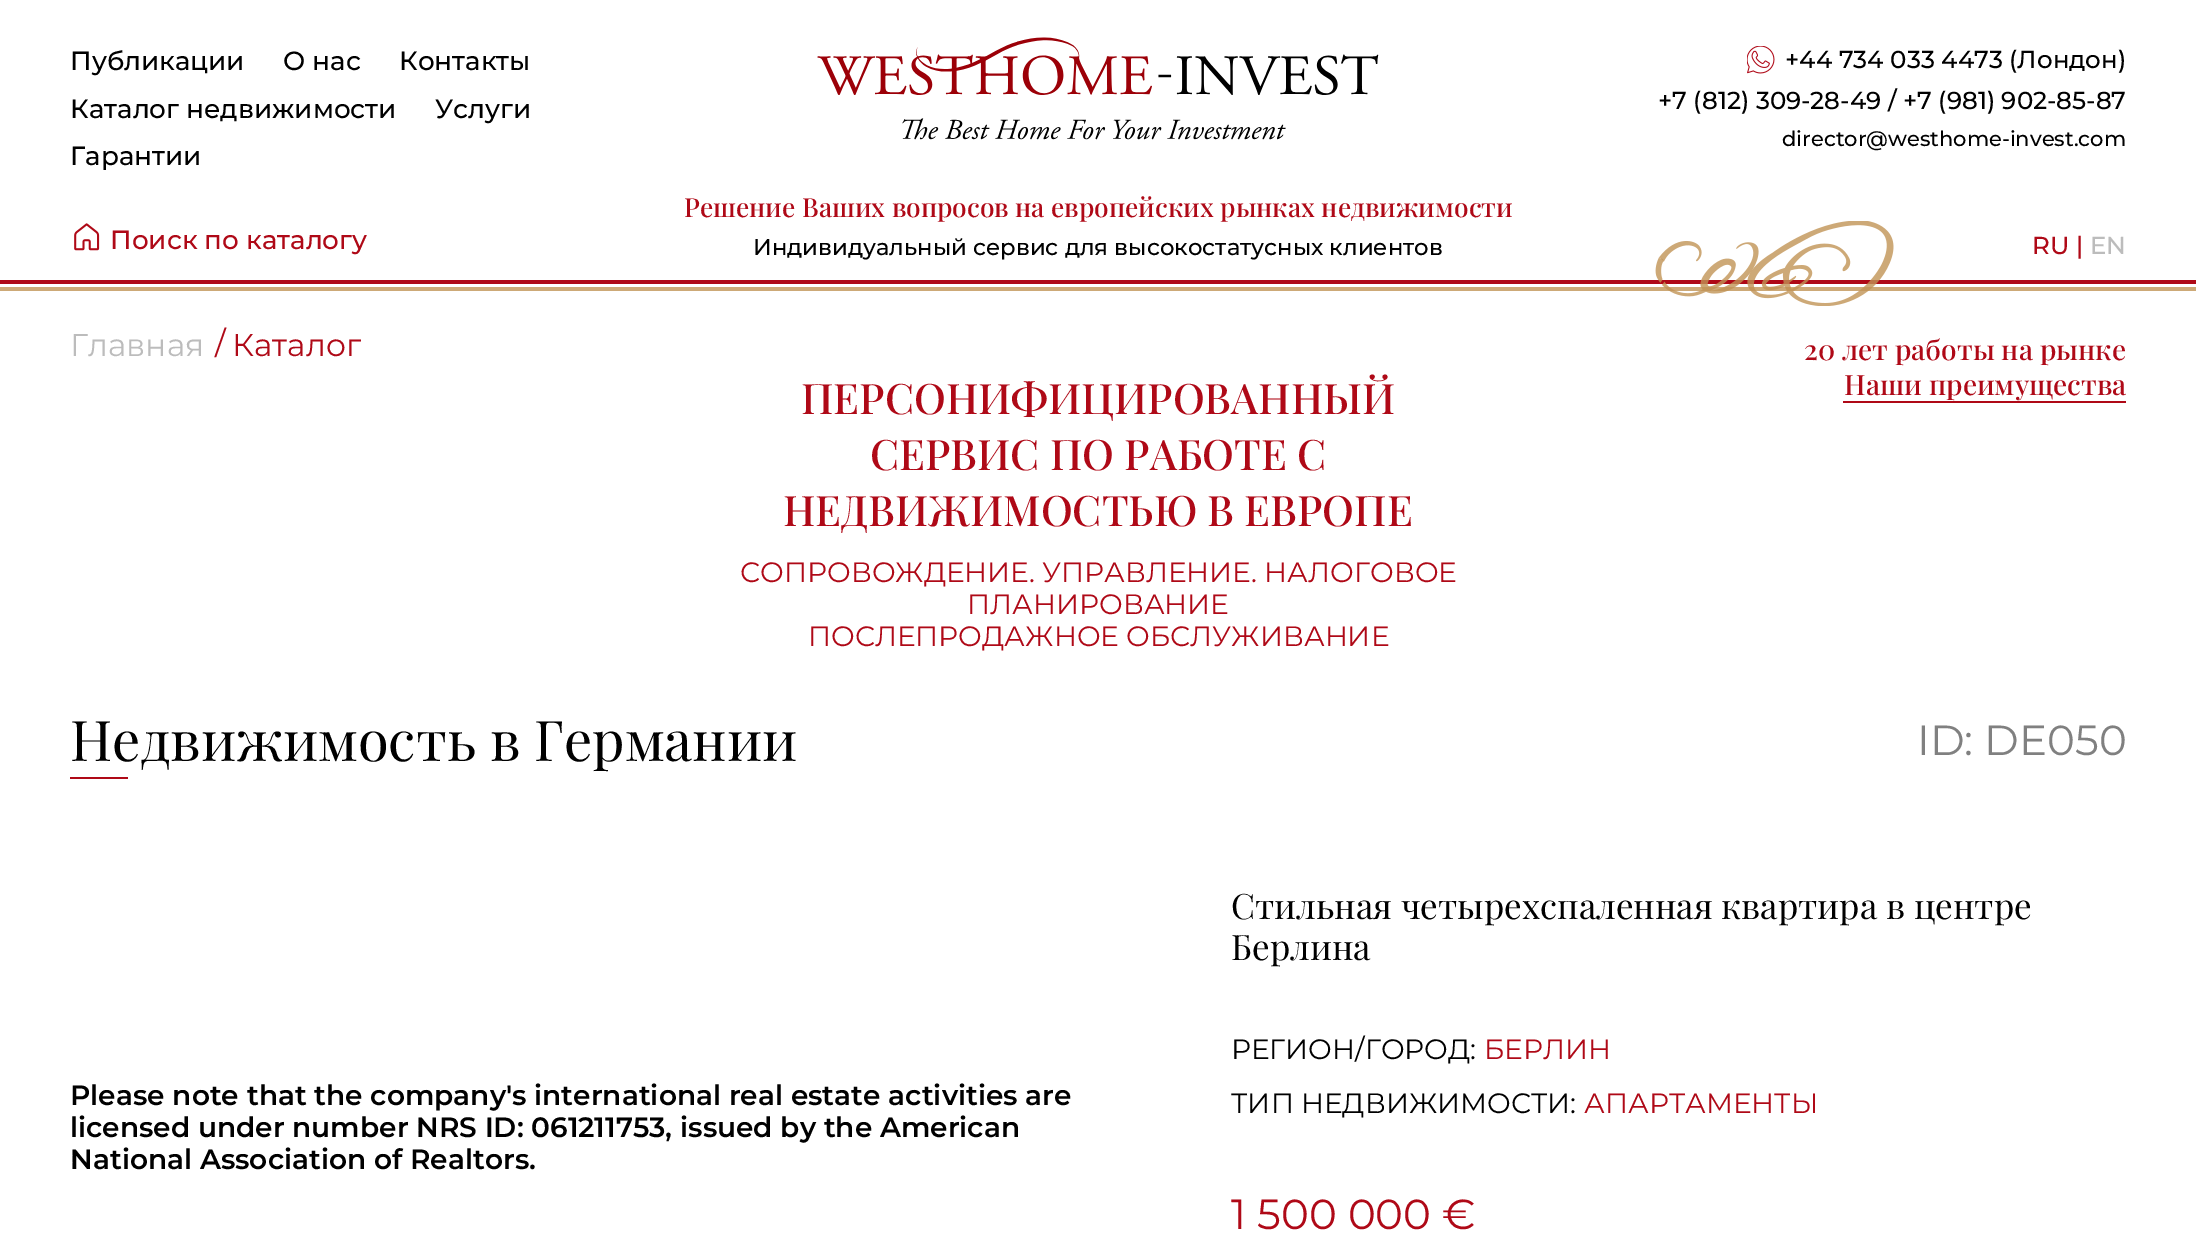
%!PS-Adobe-3.0
%%BoundingBox: 0 0 2196 1245
%%LanguageLevel: 3
%%Pages: 1
%%EndComments
%%BeginProlog
/setink { 3 { 255 div 3 1 roll } repeat setrgbcolor } def
/usefont { [ exch dup neg 0 0 3 -1 roll 0 0 ] selectfont } def
/drawtext { setink usefont moveto show } def
/fillbox { setink rectfill } def
/drawimage { 5 dict begin { /h /w /y /x /name } { exch def } forall
  gsave x y translate w h scale
  w h 8 [w 0 0 h 0 0] name (r) file false 3 colorimage grestore end } def
%%EndProlog
%%BeginSetup
<< /PageSize [2196 1245] >> setpagedevice
%%EndSetup
%%Page: 1 1
0 1245 translate 1 -1 scale
4 setmiterlimit
0 0 2196 1245 255 255 255 fillbox
0 287 2196 4 205 169 119 fillbox
(Публикации) 70 70 /Montserrat-Medium 26.25 0 0 0 drawtext
(О нас) 283 70 /Montserrat-Medium 26.25 0 0 0 drawtext
(Контакты) 399 70 /Montserrat-Medium 26.25 0 0 0 drawtext
(Каталог недвижимости) 70 118 /Montserrat-Medium 26.25 0 0 0 drawtext
(Услуги) 435 118 /Montserrat-Medium 26.25 0 0 0 drawtext
(Гарантии) 70 165 /Montserrat-Medium 26.25 0 0 0 drawtext
(assets/img1.rgb) 74 223 26 28 drawimage
(Поиск по каталогу) 110 249 /Montserrat-Medium 26.25 175 9 23 drawtext
(assets/img2.rgb) 817 37 562 103 drawimage
(Решение Ваших вопросов на европейских рынках недвижимости) 684 217 /PlayfairDisplay-Medium 26.25 175 9 23 drawtext
(Индивидуальный сервис для высокостатусных клиентов) 753 255 /Montserrat-Medium 22.75 0 0 0 drawtext
(assets/img3.rgb) 1747 46 28 28 drawimage
(+44 734 033 4473 \(Лондон\)) 1785 68 /Montserrat-Medium 24.5 0 0 0 drawtext
(+7 \(812\) 309-28-49 / +7 \(981\) 902-85-87) 1658 109 /Montserrat-Medium 24.5 0 0 0 drawtext
(director@westhome-invest.com) 1782 146 /Montserrat-Medium 21 0 0 0 drawtext
(RU |) 2032 254 /Montserrat-Medium 24.5 175 9 23 drawtext
(EN) 2090 254 /Montserrat-Medium 24.5 188 188 188 drawtext
0 280 2196 4 175 9 23 fillbox
(assets/img4.rgb) 1655 221 239 85 drawimage
(Главная) 70 356 /Montserrat-Regular 31.5 188 188 188 drawtext
(/) 215 354 /Montserrat-Regular 31.5 175 9 23 drawtext
(Каталог) 232 356 /Montserrat-Regular 31.5 175 9 23 drawtext
(ПЕРСОНИФИЦИРОВАННЫЙ) 801 414 /PlayfairDisplay-Medium 42 175 9 23 drawtext
(СЕРВИС ПО РАБОТЕ С) 870 470 /PlayfairDisplay-Medium 42 175 9 23 drawtext
(НЕДВИЖИМОСТЬЮ В ЕВРОПЕ) 783 526 /PlayfairDisplay-Medium 42 175 9 23 drawtext
(СОПРОВОЖДЕНИЕ. УПРАВЛЕНИЕ. НАЛОГОВОЕ) 740 582 /Montserrat-Regular 28 175 9 23 drawtext
(ПЛАНИРОВАНИЕ) 967 614 /Montserrat-Regular 28 175 9 23 drawtext
(ПОСЛЕПРОДАЖНОЕ ОБСЛУЖИВАНИЕ) 808 646 /Montserrat-Regular 28 175 9 23 drawtext
(20 лет работы на рынке) 1804 360 /PlayfairDisplay-Medium 28 175 9 23 drawtext
(Наши преимущества) 1844 395 /PlayfairDisplay-Medium 28 175 9 23 drawtext
1843 401 283 2 175 9 23 fillbox
(Недвижимость в Германии) 70 761 /PlayfairDisplay-Regular 56 0 0 0 drawtext
70 777 58 2 175 9 23 fillbox
(ID: DE050) 1917 755 /Montserrat-Regular 42 128 128 128 drawtext
(Please note that the company's international real estate activities are) 70 1105 /Montserrat-SemiBold 28 0 0 0 drawtext
(licensed under number NRS ID: 061211753, issued by the American) 70 1137 /Montserrat-SemiBold 28 0 0 0 drawtext
(National Association of Realtors.) 70 1169 /Montserrat-SemiBold 28 0 0 0 drawtext
(Стильная четырехспаленная квартира в центре) 1231 919 /PlayfairDisplay-Regular 35 0 0 0 drawtext
(Берлина) 1231 960 /PlayfairDisplay-Regular 35 0 0 0 drawtext
(РЕГИОН/ГОРОД:) 1231 1059 /Montserrat-Regular 28 0 0 0 drawtext
(БЕРЛИН) 1484 1059 /Montserrat-Regular 28 175 9 23 drawtext
(ТИП НЕДВИЖИМОСТИ:) 1231 1113 /Montserrat-Regular 28 0 0 0 drawtext
(АПАРТАМЕНТЫ) 1584 1113 /Montserrat-Regular 28 175 9 23 drawtext
(1 500 000 €) 1231 1229 /Montserrat-Regular 42 175 9 23 drawtext
showpage
%%EOF
